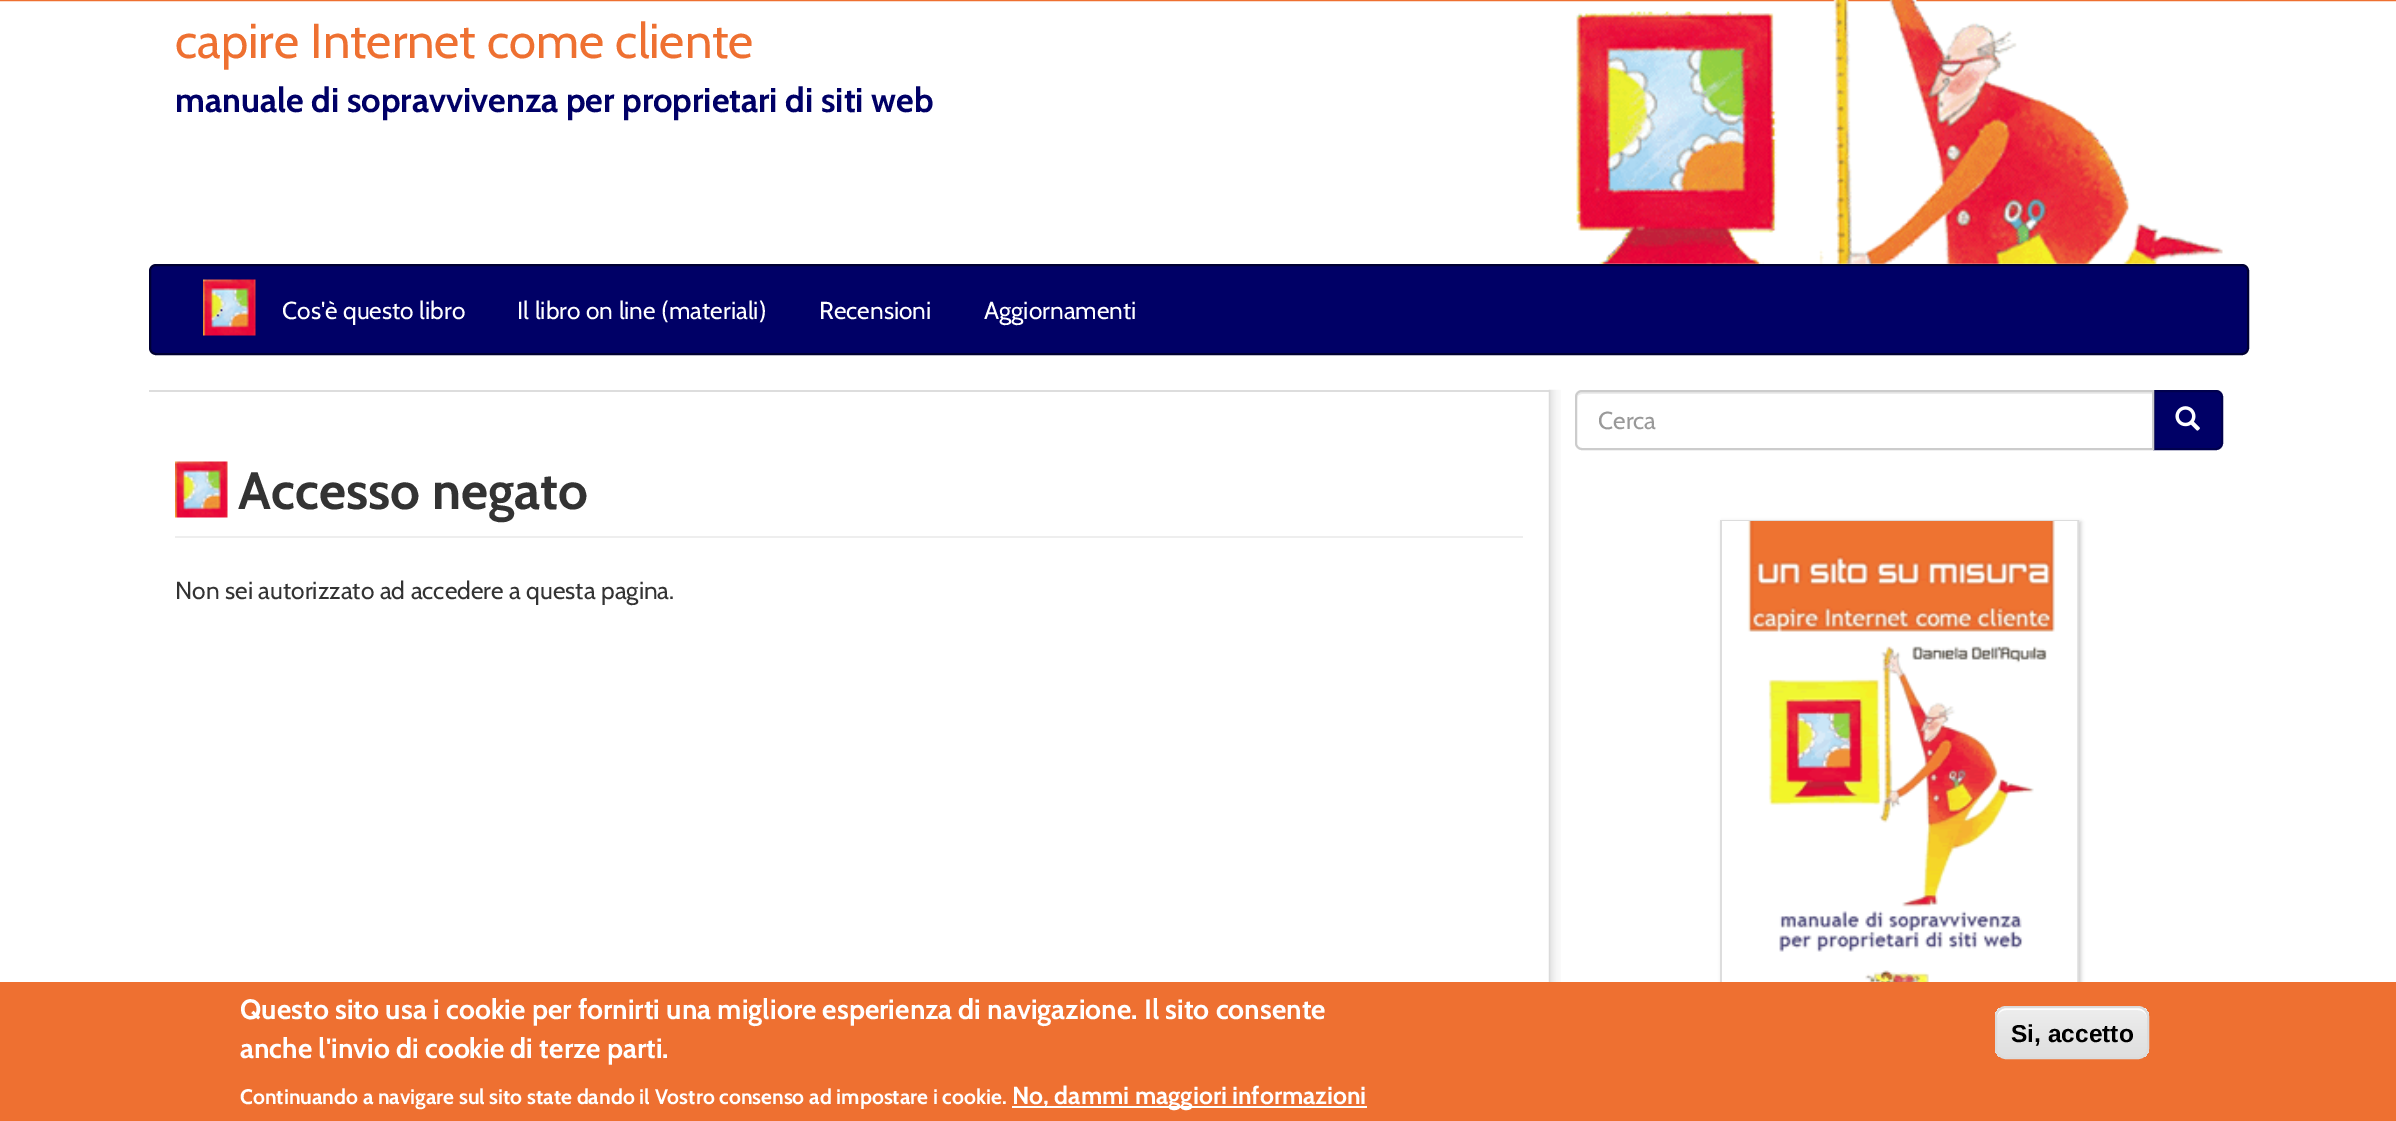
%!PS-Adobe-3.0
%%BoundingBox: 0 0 2396 1121
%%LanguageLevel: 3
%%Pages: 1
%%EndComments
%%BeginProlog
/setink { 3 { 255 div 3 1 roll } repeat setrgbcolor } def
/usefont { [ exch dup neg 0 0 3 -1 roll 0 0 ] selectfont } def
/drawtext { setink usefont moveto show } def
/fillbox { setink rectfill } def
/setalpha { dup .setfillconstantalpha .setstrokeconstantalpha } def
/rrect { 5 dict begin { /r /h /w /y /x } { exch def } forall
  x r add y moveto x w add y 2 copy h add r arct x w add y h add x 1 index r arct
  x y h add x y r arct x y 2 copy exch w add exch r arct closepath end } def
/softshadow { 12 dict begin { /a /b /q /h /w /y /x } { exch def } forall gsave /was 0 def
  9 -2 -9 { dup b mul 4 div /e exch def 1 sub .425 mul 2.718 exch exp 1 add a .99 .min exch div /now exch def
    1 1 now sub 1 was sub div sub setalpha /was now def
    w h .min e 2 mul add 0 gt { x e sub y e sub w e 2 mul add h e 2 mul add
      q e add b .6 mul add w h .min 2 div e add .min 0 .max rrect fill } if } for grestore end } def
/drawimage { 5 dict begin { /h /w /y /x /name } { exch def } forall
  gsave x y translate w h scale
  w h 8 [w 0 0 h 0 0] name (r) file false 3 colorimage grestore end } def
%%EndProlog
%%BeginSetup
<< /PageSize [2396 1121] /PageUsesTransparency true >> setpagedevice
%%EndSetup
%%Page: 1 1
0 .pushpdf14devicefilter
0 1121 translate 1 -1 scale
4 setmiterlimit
0 0 2396 1121 255 255 255 fillbox
(assets/img1.rgb) 0 0 2396 2 drawimage
(assets/img2.rgb) 1575 0 648 264 drawimage
(capire Internet come cliente) 175 58 /Cabin-Regular 49 238 112 49 drawtext
(manuale di sopravvivenza per proprietari di siti web) 175 112 /Cabin-Bold 34.3 0 0 102 drawtext
150 265 2098 89 6 rrect gsave fill grestore
0 0 51 setink
2 setlinewidth
stroke
(assets/img3.rgb) 203 279 53 57 drawimage
(Cos'è questo libro) 282 319 /Cabin-Regular 24.5 255 255 255 drawtext
(Il libro on line \(materiali\)) 517 319 /Cabin-Regular 24.5 255 255 255 drawtext
(Recensioni) 819 319 /Cabin-Regular 24.5 255 255 255 drawtext
(Aggiornamenti) 984 319 /Cabin-Regular 24.5 255 255 255 drawtext
149 390 1400 2 221 221 221 fillbox
(assets/img4.rgb) 1548 389 13 593 drawimage
0 0 102 setink
2154 391 moveto 2216 391 lineto 2219.5 391 2222 393.5 2222 397 curveto 2222 443 lineto 2222 446.5 2219.5 449 2216 449 curveto 2154 449 lineto closepath gsave fill grestore
0 0 77 setink
stroke
255 255 255 setink
1582 390 moveto 2154 390 lineto 2154 450 lineto 1582 450 lineto 1578 450 1575 447 1575 443 curveto 1575 397 lineto 1575 393 1578 390 1582 390 curveto closepath fill
236 236 236 setink
1582 394 moveto 2152 394 lineto 2152 448 lineto 2153 448 lineto 2153 392 lineto 1582 392 lineto 1578 392 1577 396 1577 399 curveto 1577 396 1579 394 1582 394 curveto closepath fill
204 204 204 setink
1582 391 moveto 2153 391 lineto 2153 449 lineto 1582 449 lineto 1578.5 449 1576 446.5 1576 443 curveto 1576 397 lineto 1576 393.5 1578.5 391 1582 391 curveto closepath stroke
(Cerca) 1598 429 /Cabin-Regular 24.5 153 153 153 drawtext
(assets/img5.rgb) 2175 406 25 25 drawimage
204 204 204 setink
1722 522 359 530 0 2 1 softshadow
221 221 221 setink
1721 521 357 528 rectstroke
(assets/img6.rgb) 1722 521 356 461 drawimage
(assets/img7.rgb) 175 461 53 57 drawimage
175 536 1348 2 238 238 238 fillbox
(Accesso negato) 238 509 /Cabin-Bold 52.5 51 51 51 drawtext
(Non sei autorizzato ad accedere a questa pagina.) 175 599 /Cabin-Regular 24.5 51 51 51 drawtext
0 982 2396 139 238 112 49 fillbox
(Questo sito usa i cookie per fornirti una migliore esperienza di navigazione. Il sito consente) 240 1019 /Cabin-Bold 28 255 255 255 drawtext
(anche l'invio di cookie di terze parti.) 240 1058 /Cabin-Bold 28 255 255 255 drawtext
(Continuando a navigare sul sito state dando il Vostro consenso ad impostare i cookie.) 240 1104 /Cabin-Bold 21 255 255 255 drawtext
1012 1106 355 2 255 255 255 fillbox
(No, dammi maggiori informazioni) 1012 1104 /Cabin-Bold 24.5 255 255 255 drawtext
gsave
1995 1006 154 53 11 rrect clip newpath
gsave 1995 1008 moveto 2149 1008 lineto 2149 1057 lineto 1995 1057 lineto closepath clip newpath
<< /ShadingType 2 /ColorSpace /DeviceRGB /Coords [2072 1008 2072 1057] /Extend [true true] /Function << /FunctionType 3 /Domain [0 1] /Functions [<< /FunctionType 2 /Domain [0 1] /C0 [0.929 0.929 0.929] /C1 [0.929 0.929 0.929] /N 1 >> << /FunctionType 2 /Domain [0 1] /C0 [0.929 0.929 0.929] /C1 [0.875 0.875 0.875] /N 1 >>] /Bounds [0.05] /Encode [0 1 0 1] >> >> shfill grestore
grestore
2006 1010 moveto 2138 1010 lineto 2143 1010 2147 1014 2147 1018 curveto 2147 1003 2124 1008 2116 1008 curveto 2028 1008 lineto 2020 1008 1997 1003 1997 1018 curveto 1997 1014 2001 1010 2006 1010 curveto closepath fill
220 220 220 setink
1996 1007 152 51 10 rrect stroke
(Si, accetto) 2011 1042 /LiberationSans-Bold 24.5 0 0 0 drawtext
.poppdf14devicefilter showpage
%%EOF
